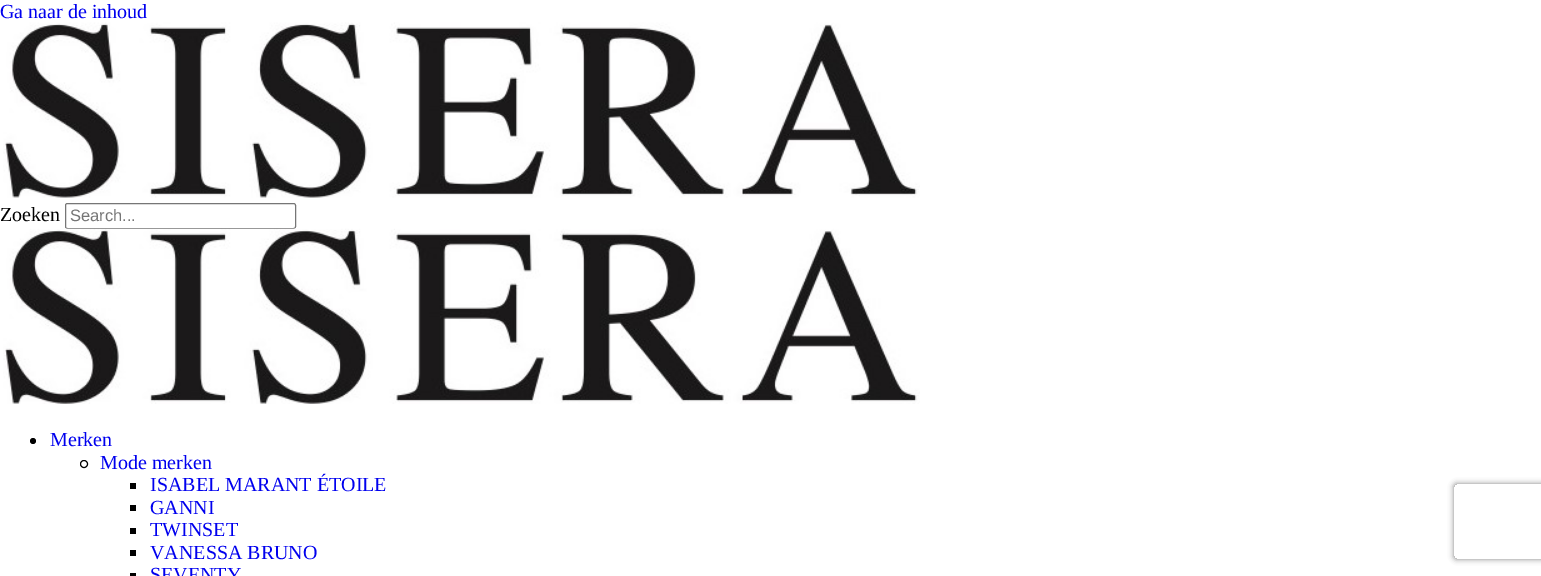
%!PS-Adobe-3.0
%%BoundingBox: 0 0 1541 576
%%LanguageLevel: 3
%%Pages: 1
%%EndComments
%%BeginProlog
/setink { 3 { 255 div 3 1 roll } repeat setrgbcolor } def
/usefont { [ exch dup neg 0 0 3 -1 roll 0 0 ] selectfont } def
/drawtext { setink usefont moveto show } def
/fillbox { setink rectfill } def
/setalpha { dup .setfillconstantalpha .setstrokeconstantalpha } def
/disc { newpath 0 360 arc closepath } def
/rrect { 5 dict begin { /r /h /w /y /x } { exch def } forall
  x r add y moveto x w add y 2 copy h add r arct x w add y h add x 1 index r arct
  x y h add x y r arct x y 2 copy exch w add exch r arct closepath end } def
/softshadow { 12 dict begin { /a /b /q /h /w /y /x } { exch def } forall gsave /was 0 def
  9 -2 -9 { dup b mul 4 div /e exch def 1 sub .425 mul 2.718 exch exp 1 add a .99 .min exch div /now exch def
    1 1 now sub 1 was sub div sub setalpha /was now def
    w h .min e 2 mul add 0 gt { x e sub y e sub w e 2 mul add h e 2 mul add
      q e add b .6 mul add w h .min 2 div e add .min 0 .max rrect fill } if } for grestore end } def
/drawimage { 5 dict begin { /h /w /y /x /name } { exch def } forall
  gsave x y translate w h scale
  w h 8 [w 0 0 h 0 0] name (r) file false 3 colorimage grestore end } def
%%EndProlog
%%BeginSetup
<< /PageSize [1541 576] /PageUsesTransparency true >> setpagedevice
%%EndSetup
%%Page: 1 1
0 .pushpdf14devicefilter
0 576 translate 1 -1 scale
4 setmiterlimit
0 0 1541 576 255 255 255 fillbox
(Ga naar de inhoud) 0 18 /LiberationSerif-Regular 20 0 0 238 drawtext
(assets/img1.rgb) 3 22 917 176 drawimage
(Zoeken) 0 221 /LiberationSerif-Regular 20 0 0 0 drawtext
118 118 118 setink
65.5 203.5 230 25 2 rrect stroke
(Search...) 70 221 /LiberationSans-Regular 16.5 117 117 117 drawtext
(assets/img2.rgb) 3 228 917 176 drawimage
0 0 0 setink
33 441 3 disc fill
(Merken) 50 446 /LiberationSerif-Regular 20 0 0 238 drawtext
0 0 0 setink
84 464 3.5 disc stroke
(Mode merken) 100 469 /LiberationSerif-Regular 20 0 0 238 drawtext
130 483 6 6 0 0 0 fillbox
(ISABEL MARANT ÉTOILE) 150 491 /LiberationSerif-Regular 20 0 0 238 drawtext
130 505 6 6 0 0 0 fillbox
(GANNI) 150 514 /LiberationSerif-Regular 20 0 0 238 drawtext
130 528 6 6 0 0 0 fillbox
(TWINSET) 150 536 /LiberationSerif-Regular 20 0 0 238 drawtext
130 550 6 6 0 0 0 fillbox
(VANESSA BRUNO) 150 559 /LiberationSerif-Regular 20 0 0 238 drawtext
130 573 6 3 0 0 0 fillbox
(SEVENTY) 150 581 /LiberationSerif-Regular 20 0 0 238 drawtext
gsave
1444 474 moveto 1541 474 lineto 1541 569 lineto 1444 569 lineto closepath 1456.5 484 moveto 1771.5 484 lineto 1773 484 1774 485 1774 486.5 curveto 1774 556.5 lineto 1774 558 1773 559 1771.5 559 curveto 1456.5 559 lineto 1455 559 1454 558 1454 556.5 curveto 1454 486.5 lineto 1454 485 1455 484 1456.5 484 curveto closepath eoclip newpath
128 128 128 setink
1454 484 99 75 2.5 3 1 softshadow
grestore
.poppdf14devicefilter showpage
%%EOF
